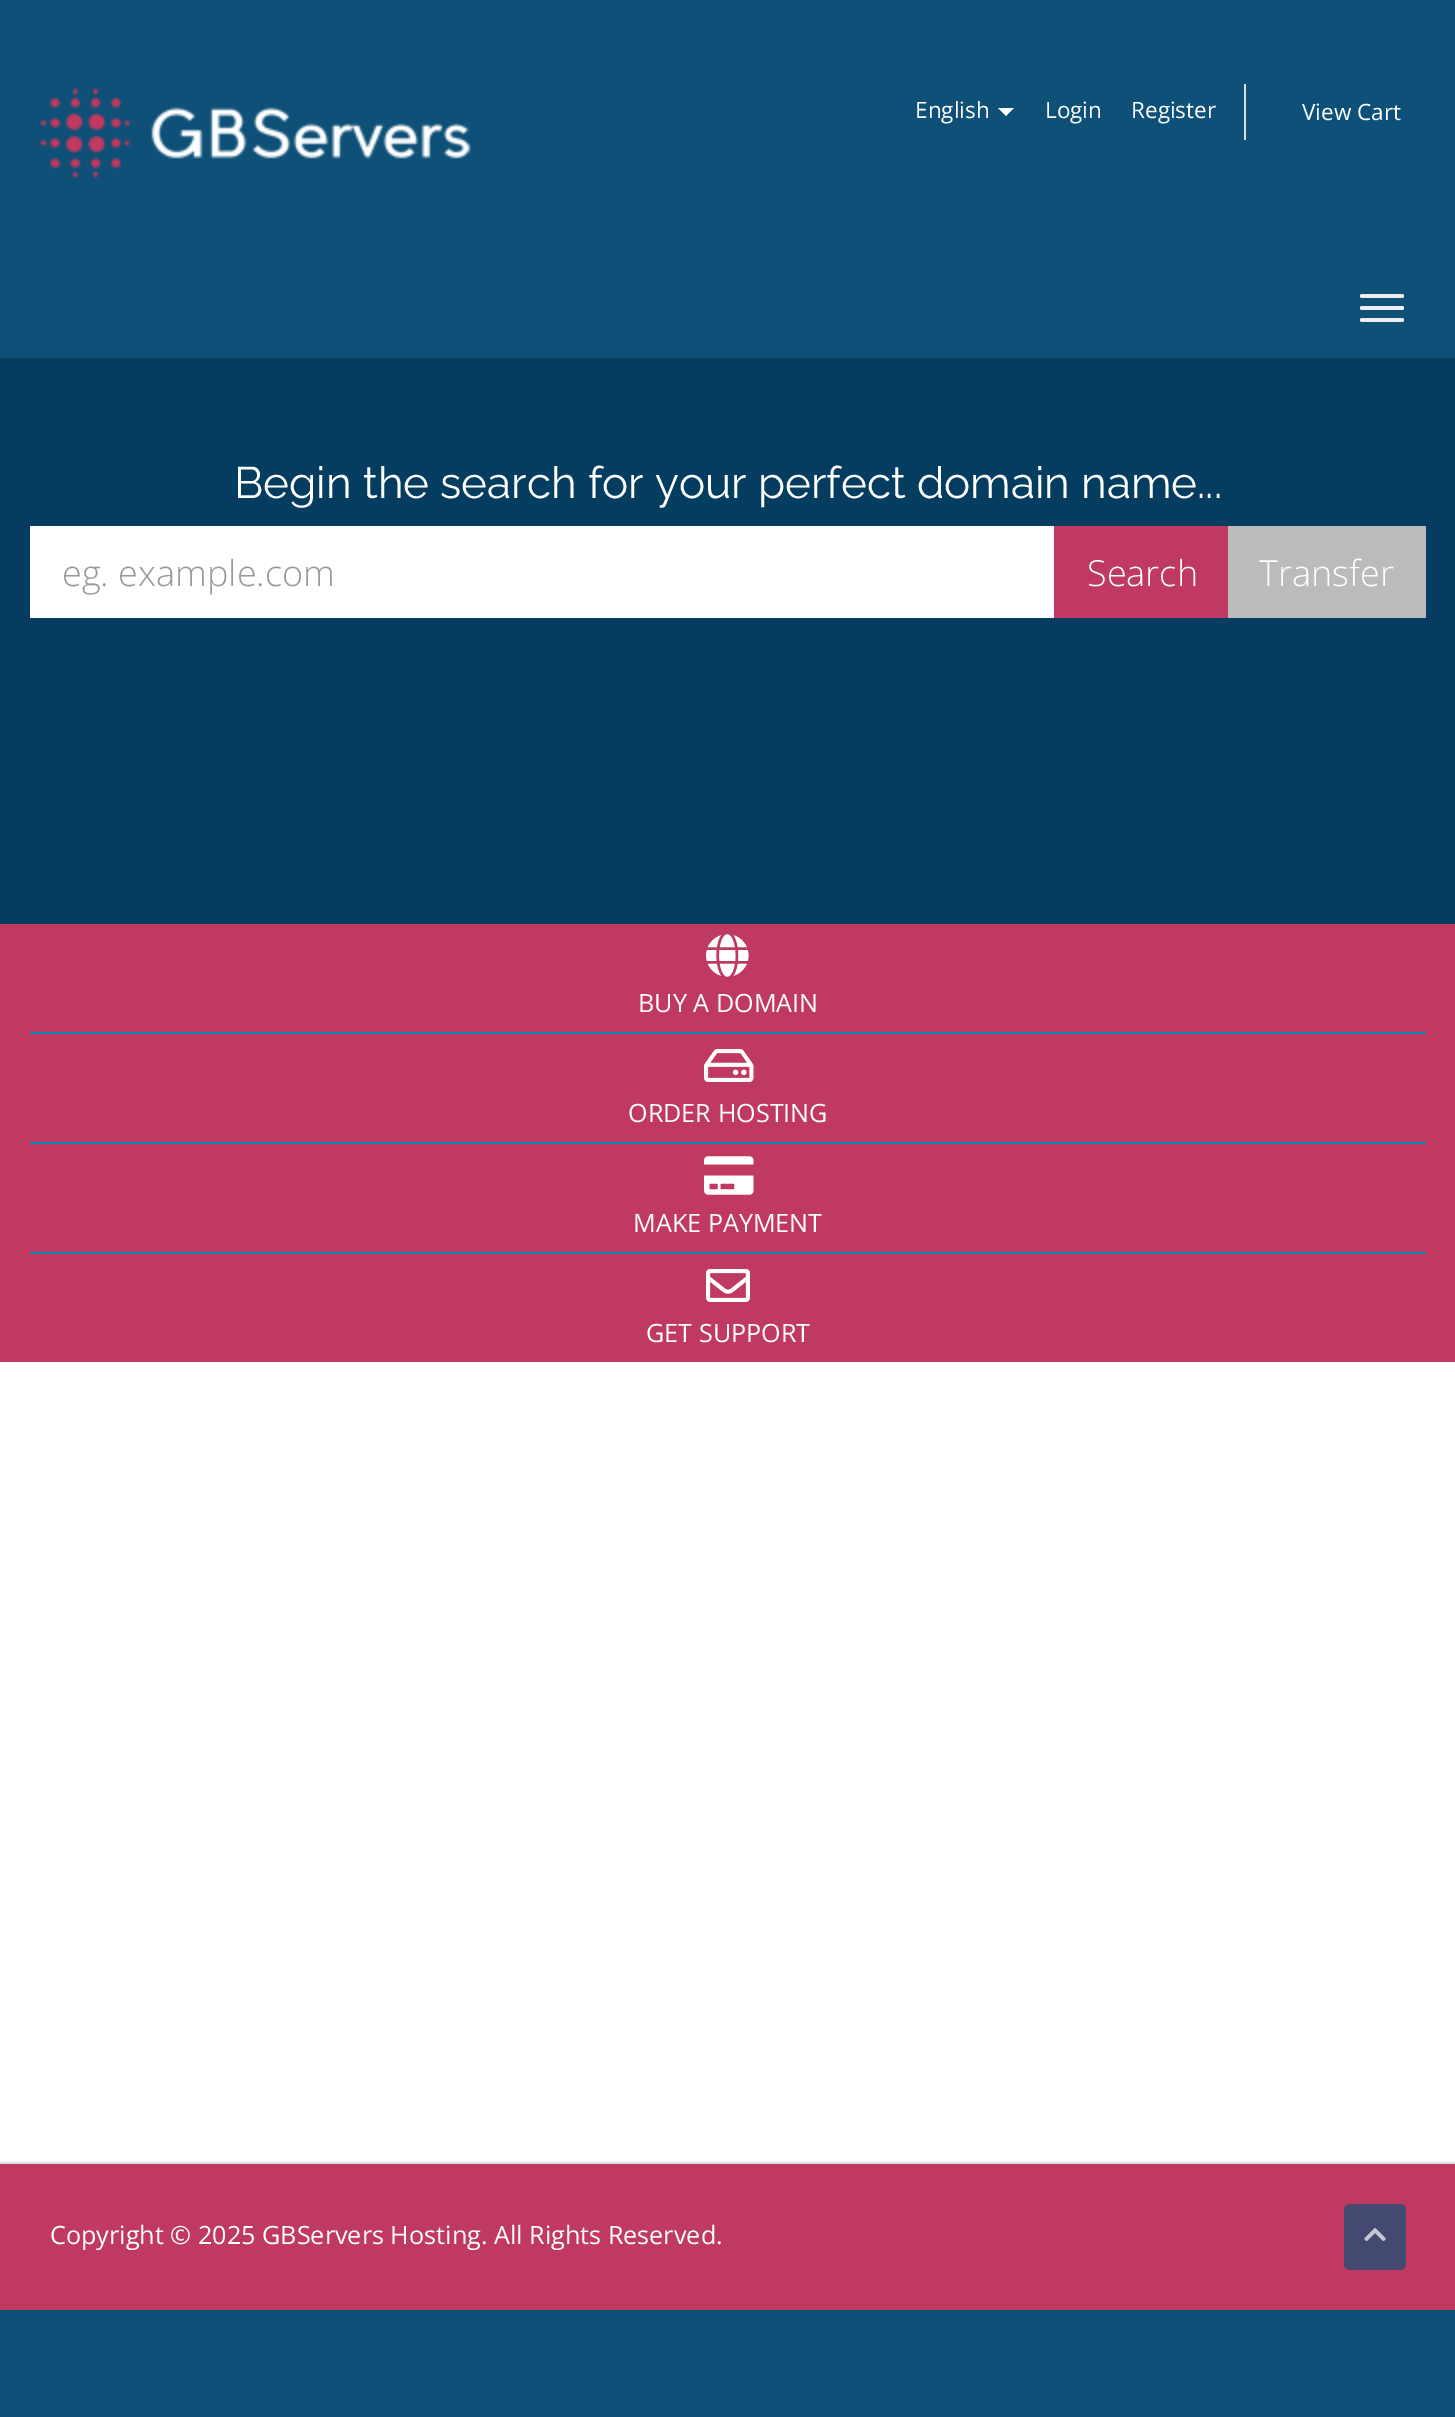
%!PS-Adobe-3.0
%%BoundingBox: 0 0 1455 2417
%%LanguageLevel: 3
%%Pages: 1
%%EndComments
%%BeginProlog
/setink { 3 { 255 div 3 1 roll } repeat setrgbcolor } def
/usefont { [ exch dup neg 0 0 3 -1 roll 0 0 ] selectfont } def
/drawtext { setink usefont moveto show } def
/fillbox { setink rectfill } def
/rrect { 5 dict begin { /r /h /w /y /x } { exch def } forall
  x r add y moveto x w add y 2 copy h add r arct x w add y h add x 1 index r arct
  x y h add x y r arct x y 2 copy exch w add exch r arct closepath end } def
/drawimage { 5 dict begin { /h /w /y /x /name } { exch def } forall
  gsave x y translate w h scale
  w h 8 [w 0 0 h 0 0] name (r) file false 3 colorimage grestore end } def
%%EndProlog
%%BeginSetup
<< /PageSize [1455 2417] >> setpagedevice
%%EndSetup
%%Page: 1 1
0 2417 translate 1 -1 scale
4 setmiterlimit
0 0 1455 2417 14 80 119 fillbox
(assets/img1.rgb) 39 87 432 92 drawimage
(English) 915 118 /OpenSans-Regular 22.5 255 255 255 drawtext
998 108 moveto 1014 108 lineto 1006 116 lineto closepath fill
(Login) 1045 118 /OpenSans-Regular 22.5 255 255 255 drawtext
(Register) 1131 118 /OpenSans-Regular 22.5 255 255 255 drawtext
1244 84 2 56 221 221 221 fillbox
(View Cart) 1302 120 /OpenSans-Regular 22.5 255 255 255 drawtext
238 238 238 setink
1360 294 44 4 2 rrect fill
1360 306 44 4 2 rrect fill
1360 318 44 4 2 rrect fill
0 358 1455 566 4 61 95 fillbox
(Begin the search for your perfect domain name...) 234 498 /Raleway-Regular 44 255 255 255 drawtext
30 526 1024 92 255 255 255 fillbox
(eg. example.com) 62 586 /OpenSans-Light 36 153 153 153 drawtext
1054 526 174 92 191 57 97 fillbox
(Search) 1087 586 /OpenSans-Light 36 255 255 255 drawtext
1228 526 198 92 187 187 187 fillbox
(Transfer) 1259 586 /OpenSans-Light 36 255 255 255 drawtext
0 924 1455 438 191 57 97 fillbox
30 1032 1396 2 14 136 176 fillbox
(assets/img2.rgb) 706 934 43 43 drawimage
(BUY A DOMAIN) 638 1012 /OpenSans-Regular 25.2 255 255 255 drawtext
30 1142 1396 2 14 136 176 fillbox
(assets/img3.rgb) 704 1049 50 33 drawimage
(ORDER HOSTING) 628 1122 /OpenSans-Regular 25.2 255 255 255 drawtext
30 1252 1396 2 14 136 176 fillbox
(assets/img4.rgb) 704 1156 50 39 drawimage
(MAKE PAYMENT) 633 1232 /OpenSans-Regular 25.2 255 255 255 drawtext
(assets/img5.rgb) 706 1269 44 33 drawimage
(GET SUPPORT) 646 1342 /OpenSans-Regular 25.2 255 255 255 drawtext
0 1362 1455 800 255 255 255 fillbox
0 2164 1455 146 191 57 97 fillbox
0 2162 1455 2 221 221 221 fillbox
(Copyright © 2025 GBServers Hosting. All Rights Reserved.) 50 2244 /OpenSans-Regular 25.2 255 255 255 drawtext
67 73 112 setink
1344 2204 62 66 6 rrect fill
(assets/img6.rgb) 1364 2228 22 13 drawimage
showpage
%%EOF
